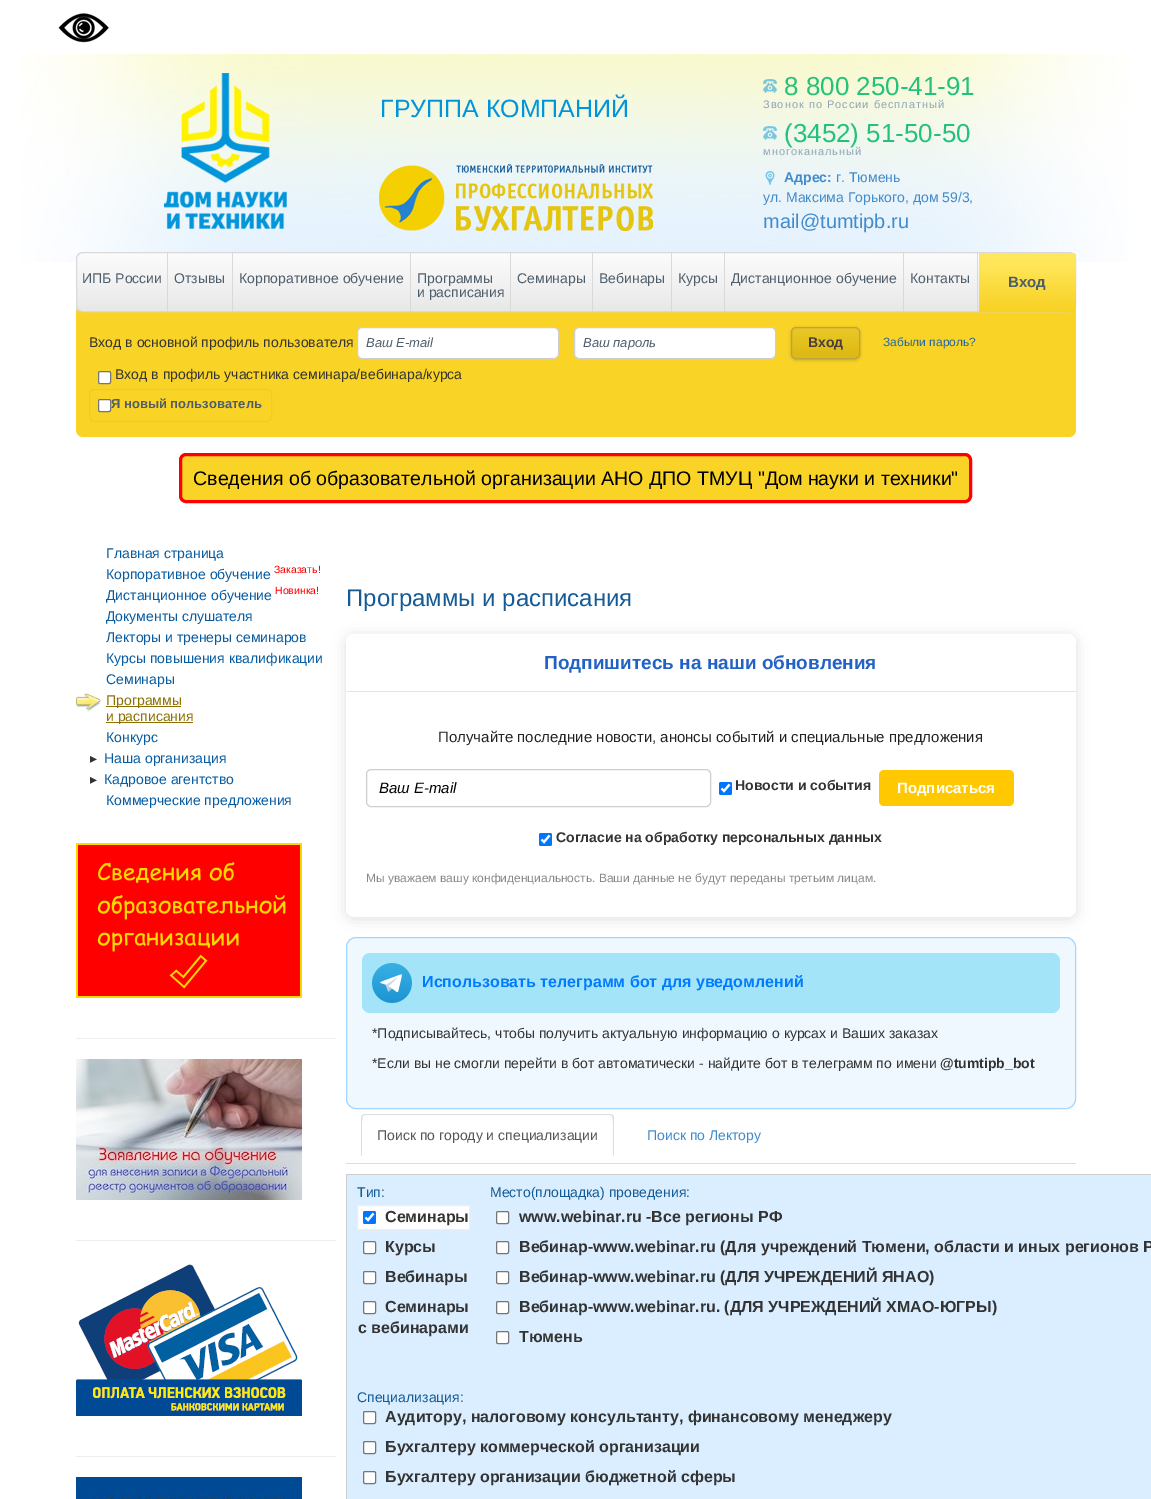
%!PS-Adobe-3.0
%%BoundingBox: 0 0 1151 1499
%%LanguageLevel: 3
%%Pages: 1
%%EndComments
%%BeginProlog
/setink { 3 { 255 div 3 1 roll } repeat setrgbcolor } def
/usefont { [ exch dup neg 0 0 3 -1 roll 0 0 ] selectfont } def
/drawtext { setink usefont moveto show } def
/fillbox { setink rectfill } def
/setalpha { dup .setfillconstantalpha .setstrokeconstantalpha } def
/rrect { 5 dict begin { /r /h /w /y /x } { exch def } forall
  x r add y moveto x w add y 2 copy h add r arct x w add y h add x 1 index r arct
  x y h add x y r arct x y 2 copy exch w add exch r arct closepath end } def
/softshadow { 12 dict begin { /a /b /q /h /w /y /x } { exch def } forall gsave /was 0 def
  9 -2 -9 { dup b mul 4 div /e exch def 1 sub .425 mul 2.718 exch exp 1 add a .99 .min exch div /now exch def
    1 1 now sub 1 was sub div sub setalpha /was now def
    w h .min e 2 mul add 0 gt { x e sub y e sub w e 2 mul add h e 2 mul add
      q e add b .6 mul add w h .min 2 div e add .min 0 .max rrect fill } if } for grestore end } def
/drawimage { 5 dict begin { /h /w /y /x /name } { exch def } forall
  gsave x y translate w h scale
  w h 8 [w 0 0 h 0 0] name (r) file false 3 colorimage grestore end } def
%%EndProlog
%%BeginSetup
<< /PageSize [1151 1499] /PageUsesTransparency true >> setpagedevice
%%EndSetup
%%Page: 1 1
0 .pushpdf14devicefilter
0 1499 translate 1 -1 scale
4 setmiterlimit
0 0 1151 1499 255 255 255 fillbox
(assets/img1.rgb) 58 13 51 30 drawimage
(assets/img2.rgb) 20 54 1109 208 drawimage
(assets/img3.rgb) 164 73 123 156 drawimage
(ГРУППА КОМПАНИЙ) 380 117 /LiberationSans-Regular 25 0 148 218 drawtext
(assets/img4.rgb) 379 164 274 67 drawimage
(assets/img5.rgb) 763 79 14 14 drawimage
(8 800 250-41-91) 784 95 /LiberationSans-Regular 26 36 193 123 drawtext
/LiberationSans-Regular 11 usefont
141 164 184 setink
763 108 moveto 1 0 (Звонок по России бесплатный) ashow
(assets/img6.rgb) 763 126 14 14 drawimage
(\(3452\) 51-50-50) 784 142 /LiberationSans-Regular 26 36 193 123 drawtext
/LiberationSans-Regular 11 usefont
141 164 184 setink
763 155 moveto 1 0 (многоканальный) ashow
(assets/img7.rgb) 765 171 10 14 drawimage
(Адрес:) 784 182 /LiberationSans-Bold 14 66 139 202 drawtext
(г. Тюмень) 836 182 /LiberationSans-Regular 14 66 139 202 drawtext
(ул. Максима Горького, дом 59/3,) 763 202 /LiberationSans-Regular 14 66 139 202 drawtext
(mail@tumtipb.ru) 763 228 /LiberationSans-Regular 20 66 139 202 drawtext
249 211 37 setink
76 307 moveto 1076 307 lineto 1076 430 lineto 1076 434 1073 437 1069 437 curveto 83 437 lineto 79 437 76 434 76 430 curveto closepath fill
gsave
76 252 1000 60 7 rrect clip newpath
gsave 76 253 moveto 1076 253 lineto 1076 311 lineto 76 311 lineto closepath clip newpath
<< /ShadingType 2 /ColorSpace /DeviceRGB /Coords [576 253 576 311] /Extend [true true] /Function << /FunctionType 2 /Domain [0 1] /C0 [0.988 0.988 0.988] /C1 [0.91 0.91 0.91] /N 1 >> >> shfill grestore
grestore
217 217 217 setink
76.5 252.5 999 59 6.5 rrect stroke
167 253 1 59 217 217 217 fillbox
(ИПБ России) 82 283 /LiberationSans-Regular 14 78 93 106 drawtext
232 253 1 59 217 217 217 fillbox
(Отзывы) 174 283 /LiberationSans-Regular 14 78 93 106 drawtext
410 253 1 59 217 217 217 fillbox
(Корпоративное обучение) 239 283 /LiberationSans-Regular 14 78 93 106 drawtext
510 253 1 59 217 217 217 fillbox
(Программы) 417 283 /LiberationSans-Regular 14 78 93 106 drawtext
(и расписания) 417 297 /LiberationSans-Regular 14 78 93 106 drawtext
592 253 1 59 217 217 217 fillbox
(Семинары) 517 283 /LiberationSans-Regular 14 78 93 106 drawtext
671 253 1 59 217 217 217 fillbox
(Вебинары) 599 283 /LiberationSans-Regular 14 78 93 106 drawtext
724 253 1 59 217 217 217 fillbox
(Курсы) 678 283 /LiberationSans-Regular 14 78 93 106 drawtext
903 253 1 59 217 217 217 fillbox
(Дистанционное обучение) 731 283 /LiberationSans-Regular 14 78 93 106 drawtext
977 253 1 59 217 217 217 fillbox
(Контакты) 910 283 /LiberationSans-Regular 14 78 93 106 drawtext
gsave 979 253 moveto 1071 253 lineto 1074 253 1076 255 1076 258 curveto 1076 312 lineto 979 312 lineto closepath clip newpath
<< /ShadingType 2 /ColorSpace /DeviceRGB /Coords [1028 253 1028 312] /Extend [true true] /Function << /FunctionType 3 /Domain [0 1] /Functions [<< /FunctionType 2 /Domain [0 1] /C0 [0.996 0.91 0.376] /C1 [0.996 0.902 0.349] /N 1 >> << /FunctionType 2 /Domain [0 1] /C0 [0.996 0.902 0.349] /C1 [0.976 0.831 0.165] /N 1 >> << /FunctionType 2 /Domain [0 1] /C0 [0.976 0.831 0.165] /C1 [0.973 0.827 0.145] /N 1 >>] /Bounds [0.2 0.88] /Encode [0 1 0 1 0 1] >> >> shfill grestore
(Вход) 1008 287 /LiberationSans-Bold 15 78 93 106 drawtext
(Вход в основной профиль пользователя) 89 347 /LiberationSans-Regular 14 51 51 51 drawtext
255 255 255 setink
357.5 327.5 201 31 4.5 rrect gsave fill grestore
206 206 206 setink
stroke
(Ваш E-mail) 366 347 /LiberationSans-Italic 13 78 93 106 drawtext
255 255 255 setink
574.5 327.5 201 31 4.5 rrect gsave fill grestore
206 206 206 setink
stroke
(Ваш пароль) 583 347 /LiberationSans-Italic 13 78 93 106 drawtext
0 0 0 setink
791 328 69 32 5 1.5 0.2 softshadow
gsave
791 327 69 32 5 rrect clip newpath
gsave 791 328 moveto 860 328 lineto 860 358 lineto 791 358 lineto closepath clip newpath
<< /ShadingType 2 /ColorSpace /DeviceRGB /Coords [826 328 826 358] /Extend [true true] /Function << /FunctionType 3 /Domain [0 1] /Functions [<< /FunctionType 2 /Domain [0 1] /C0 [0.914 0.78 0.153] /C1 [0.89 0.757 0.118] /N 1 >> << /FunctionType 2 /Domain [0 1] /C0 [0.89 0.757 0.118] /C1 [0.882 0.737 0.09] /N 1 >> << /FunctionType 2 /Domain [0 1] /C0 [0.882 0.737 0.09] /C1 [0.871 0.725 0.078] /N 1 >>] /Bounds [0.48 0.69] /Encode [0 1 0 1 0 1] >> >> shfill grestore
grestore
186 165 68 setink
791.5 327.5 68 31 4.5 rrect stroke
(Вход) 808 347 /LiberationSans-Bold 14 74 61 61 drawtext
(Забыли пароль?) 883 346 /LiberationSans-Regular 12 38 105 161 drawtext
255 255 255 setink
98.5 371.5 12 12 1.5 rrect gsave fill grestore
118 118 118 setink
stroke
(Вход в профиль участника семинара/вебинара/курса) 115 379 /LiberationSans-Regular 14 51 51 51 drawtext
237 203 45 setink
89.5 389.5 182 32 4.5 rrect stroke
255 255 255 setink
98.5 399.5 12 12 1.5 rrect gsave fill grestore
118 118 118 setink
stroke
(Я новый пользователь) 111 408 /LiberationSans-Bold 13 78 93 106 drawtext
249 211 37 setink
180.5 454.5 790 47 5.5 rrect gsave fill grestore
255 0 0 setink
3 setlinewidth
stroke
(Сведения об образовательной организации АНО ДПО ТМУЦ "Дом науки и техники") 193 485 /LiberationSans-Regular 19.6 0 0 0 drawtext
(Главная страница) 106 558 /LiberationSans-Regular 14 6 91 161 drawtext
(Корпоративное обучение) 106 579 /LiberationSans-Regular 14 6 91 161 drawtext
(Заказать!) 274 573 /LiberationSans-Regular 10.5 255 0 0 drawtext
(Дистанционное обучение) 106 600 /LiberationSans-Regular 14 6 91 161 drawtext
(Новинка!) 275 594 /LiberationSans-Regular 10.5 255 0 0 drawtext
(Документы слушателя) 106 621 /LiberationSans-Regular 14 6 91 161 drawtext
(Лекторы и тренеры семинаров) 106 642 /LiberationSans-Regular 14 6 91 161 drawtext
(Курсы повышения квалификации) 106 663 /LiberationSans-Regular 14 6 91 161 drawtext
(Семинары) 106 684 /LiberationSans-Regular 14 6 91 161 drawtext
(assets/img8.rgb) 76 693 25 19 drawimage
106 706 75 1 140 113 2 fillbox
(Программы) 106 705 /LiberationSans-Regular 14 140 113 2 drawtext
106 722 87 1 140 113 2 fillbox
(и расписания) 106 721 /LiberationSans-Regular 14 140 113 2 drawtext
(Конкурс) 106 742 /LiberationSans-Regular 14 6 91 161 drawtext
(▸) 90 763 /DejaVuSans-Regular 14 51 51 51 drawtext
(Наша организация) 104 763 /LiberationSans-Regular 14 6 91 161 drawtext
(▸) 90 784 /DejaVuSans-Regular 14 51 51 51 drawtext
(Кадровое агентство) 104 784 /LiberationSans-Regular 14 6 91 161 drawtext
(Коммерческие предложения) 106 805 /LiberationSans-Regular 14 6 91 161 drawtext
(assets/img9.rgb) 76 843 226 155 drawimage
76 1038 260 1 238 238 238 fillbox
(assets/img10.rgb) 76 1059 226 141 drawimage
76 1240 260 1 238 238 238 fillbox
(assets/img11.rgb) 76 1264 226 152 drawimage
76 1456 260 1 238 238 238 fillbox
(assets/img12.rgb) 76 1477 226 22 drawimage
(Программы и расписания) 346 606 /LiberationSans-Regular 24 20 90 149 drawtext
240 248 255 setink
346.5 937.5 729 171 9.5 rrect gsave fill grestore
163 213 255 setink
1 setlinewidth
stroke
0 0 0 setink
346 636 730 283 8 7 0.14 softshadow
255 255 255 setink
346 634 730 283 8 rrect fill
346 691 730 1 229 229 229 fillbox
(Подпишитесь на наши обновления) 544 669 /LiberationSans-Bold 19 34 98 198 drawtext
(Получайте последние новости, анонсы событий и специальные предложения) 438 742 /LiberationSans-Regular 15 34 34 34 drawtext
207 207 207 setink
366.5 769.5 344 37 4.5 rrect stroke
(Ваш E-mail) 379 793 /LiberationSans-Italic 15 0 0 0 drawtext
0 117 255 setink
719 782 13 13 2 rrect fill
255 255 255 setink
2.1 setlinewidth
721.5 788.5 moveto 724 791 lineto 729.5 784.5 lineto stroke
(Новости и события) 735 790 /LiberationSans-Bold 14 51 51 51 drawtext
255 200 1 setink
879 770 135 36 5 rrect fill
(Подписаться) 897 793 /LiberationSans-Bold 15 255 255 255 drawtext
0 117 255 setink
539 833 13 13 2 rrect fill
255 255 255 setink
541.5 839.5 moveto 544 842 lineto 549.5 835.5 lineto stroke
(Согласие на обработку персональных данных) 556 842 /LiberationSans-Bold 14 51 51 51 drawtext
(Мы уважаем вашу конфиденциальность. Ваши данные не будут переданы третьим лицам.) 366 882 /LiberationSans-Regular 12 136 136 136 drawtext
163 228 249 setink
362 953 698 60 8 rrect fill
(assets/img13.rgb) 372 963 40 40 drawimage
(Использовать телеграмм бот для уведомлений) 422 987 /LiberationSans-Bold 16 0 123 255 drawtext
(*Подписывайтесь, чтобы получить актуальную информацию о курсах и Ваших заказах) 372 1038 /LiberationSans-Regular 14 51 51 51 drawtext
(*Если вы не смогли перейти в бот автоматически - найдите бот в телеграмм по имени) 372 1068 /LiberationSans-Regular 14 51 51 51 drawtext
(@tumtipb_bot) 940 1068 /LiberationSans-Bold 14 51 51 51 drawtext
346 1163 730 1 221 221 221 fillbox
365 1114 moveto 362 1115 lineto 363 1116 lineto 365 1115 lineto 610 1115 lineto 612 1116 lineto 613 1115 lineto 610 1114 lineto closepath fill
614 1156 moveto 614 1118 lineto 614 1117 614 1116 613 1115 curveto 612 1116 lineto 614 1118 613 1150 613 1155 curveto closepath fill
361 1156 moveto 362 1155 lineto 362 1150 361 1118 363 1116 curveto 362 1115 lineto 361 1118 lineto closepath fill
(Поиск по городу и специализации) 377 1140 /LiberationSans-Regular 14 85 85 85 drawtext
(Поиск по Лектору) 647 1140 /LiberationSans-Regular 14 66 139 202 drawtext
346 1174 805 1 206 206 206 fillbox
346 1174 1 325 206 206 206 fillbox
347 1175 804 25 218 238 255 fillbox
(Тип:) 357 1197 /LiberationSans-Regular 14 20 90 149 drawtext
(Место\(площадка\) проведения:) 490 1197 /LiberationSans-Regular 14 20 90 149 drawtext
347 1200 804 299 218 238 255 fillbox
255 255 255 setink
357.5 1205.5 moveto 469.5 1205.5 lineto 469.5 1229.5 lineto 357.5 1229.5 lineto closepath gsave fill grestore
238 238 238 setink
1 setlinewidth
stroke
0 117 255 setink
363 1211 13 13 2 rrect fill
255 255 255 setink
2.1 setlinewidth
365.5 1217.5 moveto 368 1220 lineto 373.5 1213.5 lineto stroke
(Семинары) 385 1222 /LiberationSans-Bold 16 51 51 51 drawtext
255 255 255 setink
363.5 1241.5 12 12 1.5 rrect gsave fill grestore
118 118 118 setink
1 setlinewidth
stroke
(Курсы) 385 1252 /LiberationSans-Bold 16 51 51 51 drawtext
255 255 255 setink
363.5 1271.5 12 12 1.5 rrect gsave fill grestore
118 118 118 setink
stroke
(Вебинары) 385 1282 /LiberationSans-Bold 16 51 51 51 drawtext
255 255 255 setink
363.5 1301.5 12 12 1.5 rrect gsave fill grestore
118 118 118 setink
stroke
(Семинары) 385 1312 /LiberationSans-Bold 16 51 51 51 drawtext
(с вебинарами) 358 1333 /LiberationSans-Bold 16 51 51 51 drawtext
255 255 255 setink
496.5 1211.5 12 12 1.5 rrect gsave fill grestore
118 118 118 setink
stroke
(www.webinar.ru -Все регионы РФ) 519 1222 /LiberationSans-Bold 16 51 51 51 drawtext
255 255 255 setink
496.5 1241.5 12 12 1.5 rrect gsave fill grestore
118 118 118 setink
stroke
(Вебинар-www.webinar.ru \(Для учреждений Тюмени, области и иных регионов Р) 519 1252 /LiberationSans-Bold 16 51 51 51 drawtext
255 255 255 setink
496.5 1271.5 12 12 1.5 rrect gsave fill grestore
118 118 118 setink
stroke
(Вебинар-www.webinar.ru \(ДЛЯ УЧРЕЖДЕНИЙ ЯНАО\)) 519 1282 /LiberationSans-Bold 16 51 51 51 drawtext
255 255 255 setink
496.5 1301.5 12 12 1.5 rrect gsave fill grestore
118 118 118 setink
stroke
(Вебинар-www.webinar.ru. \(ДЛЯ УЧРЕЖДЕНИЙ ХМАО-ЮГРЫ\)) 519 1312 /LiberationSans-Bold 16 51 51 51 drawtext
255 255 255 setink
496.5 1331.5 12 12 1.5 rrect gsave fill grestore
118 118 118 setink
stroke
(Тюмень) 519 1342 /LiberationSans-Bold 16 51 51 51 drawtext
(Специализация:) 357 1402 /LiberationSans-Regular 14 20 90 149 drawtext
255 255 255 setink
363.5 1411.5 12 12 1.5 rrect gsave fill grestore
118 118 118 setink
stroke
(Аудитору, налоговому консультанту, финансовому менеджеру) 385 1422 /LiberationSans-Bold 16 51 51 51 drawtext
255 255 255 setink
363.5 1441.5 12 12 1.5 rrect gsave fill grestore
118 118 118 setink
stroke
(Бухгалтеру коммерческой организации) 385 1452 /LiberationSans-Bold 16 51 51 51 drawtext
255 255 255 setink
363.5 1471.5 12 12 1.5 rrect gsave fill grestore
118 118 118 setink
stroke
(Бухгалтеру организации бюджетной сферы) 385 1482 /LiberationSans-Bold 16 51 51 51 drawtext
.poppdf14devicefilter showpage
%%EOF
